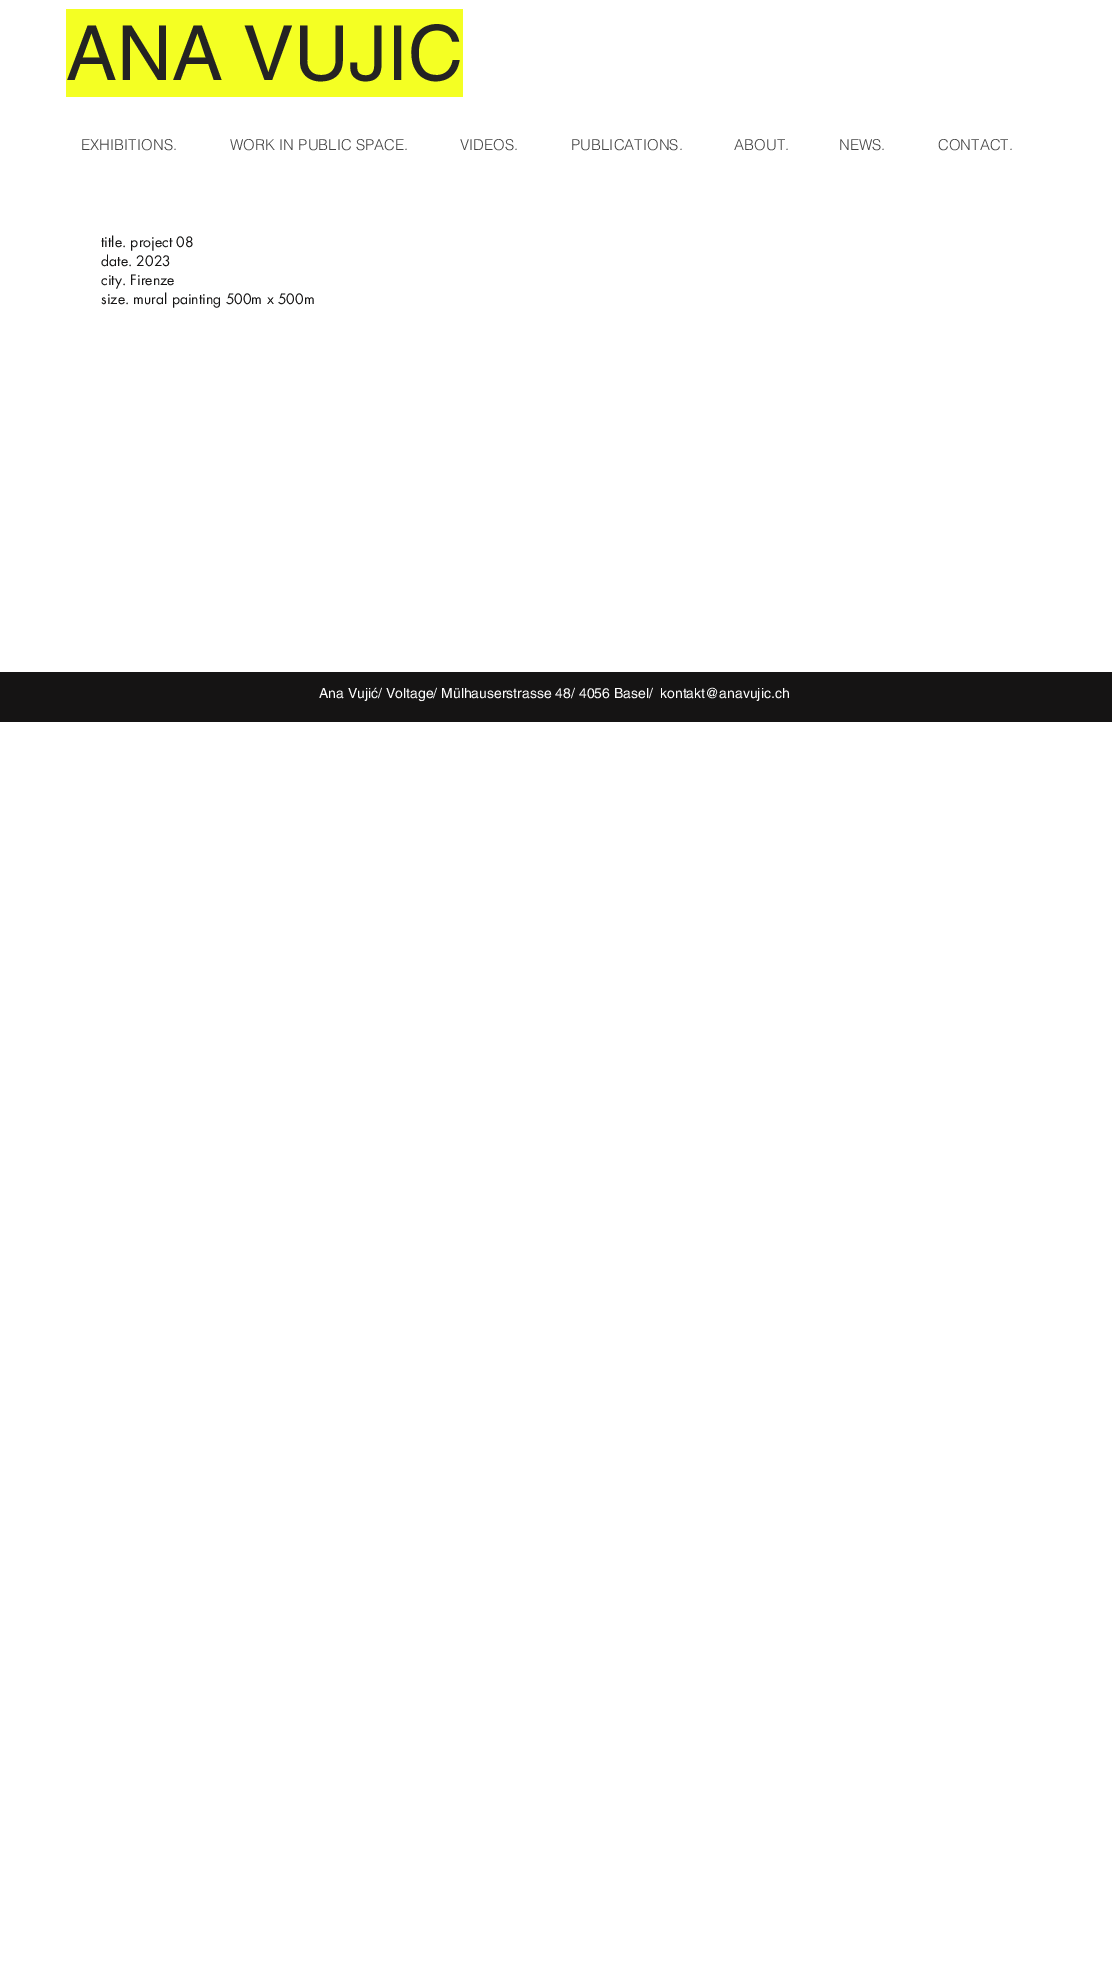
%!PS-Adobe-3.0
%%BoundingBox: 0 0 1112 1966
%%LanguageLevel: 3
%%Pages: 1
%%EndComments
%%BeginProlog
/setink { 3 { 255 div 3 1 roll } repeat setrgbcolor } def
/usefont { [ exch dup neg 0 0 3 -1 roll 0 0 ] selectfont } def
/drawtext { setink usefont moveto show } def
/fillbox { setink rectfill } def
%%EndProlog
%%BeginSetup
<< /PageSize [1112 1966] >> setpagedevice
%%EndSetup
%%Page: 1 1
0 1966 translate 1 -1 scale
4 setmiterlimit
0 0 1112 1966 255 255 255 fillbox
66 9 397 88 244 255 35 fillbox
(ANA VUJIC) 66 80 /helvetica-Regular 76 36 35 35 drawtext
(EXHIBITIONS.) 81 150 /helvetica-Light 15 68 68 68 drawtext
(WORK IN PUBLIC SPACE.) 230 150 /helvetica-Light 15 68 68 68 drawtext
(VIDEOS.) 460 150 /helvetica-Light 15 68 68 68 drawtext
(PUBLICATIONS.) 571 150 /helvetica-Light 15 68 68 68 drawtext
(ABOUT.) 734 150 /helvetica-Light 15 68 68 68 drawtext
(NEWS.) 839 150 /helvetica-Light 15 68 68 68 drawtext
(CONTACT.) 938 150 /helvetica-Light 15 68 68 68 drawtext
(title. project 08) 101 247 /futura-Regular 14 21 20 20 drawtext
(date. 2023) 101 266 /futura-Regular 14 21 20 20 drawtext
(city. Firenze) 101 285 /futura-Regular 14 21 20 20 drawtext
(size. mural painting 500m x 500m) 101 304 /futura-Regular 14 21 20 20 drawtext
0 672 1112 50 21 20 20 fillbox
(Ana Vujić/ Voltage/ Mülhauserstrasse 48/ 4056 Basel/) 319 698 /helvetica-Regular 14 255 255 255 drawtext
(kontakt@anavujic.ch) 660 698 /helvetica-Regular 14 255 255 255 drawtext
showpage
%%EOF
